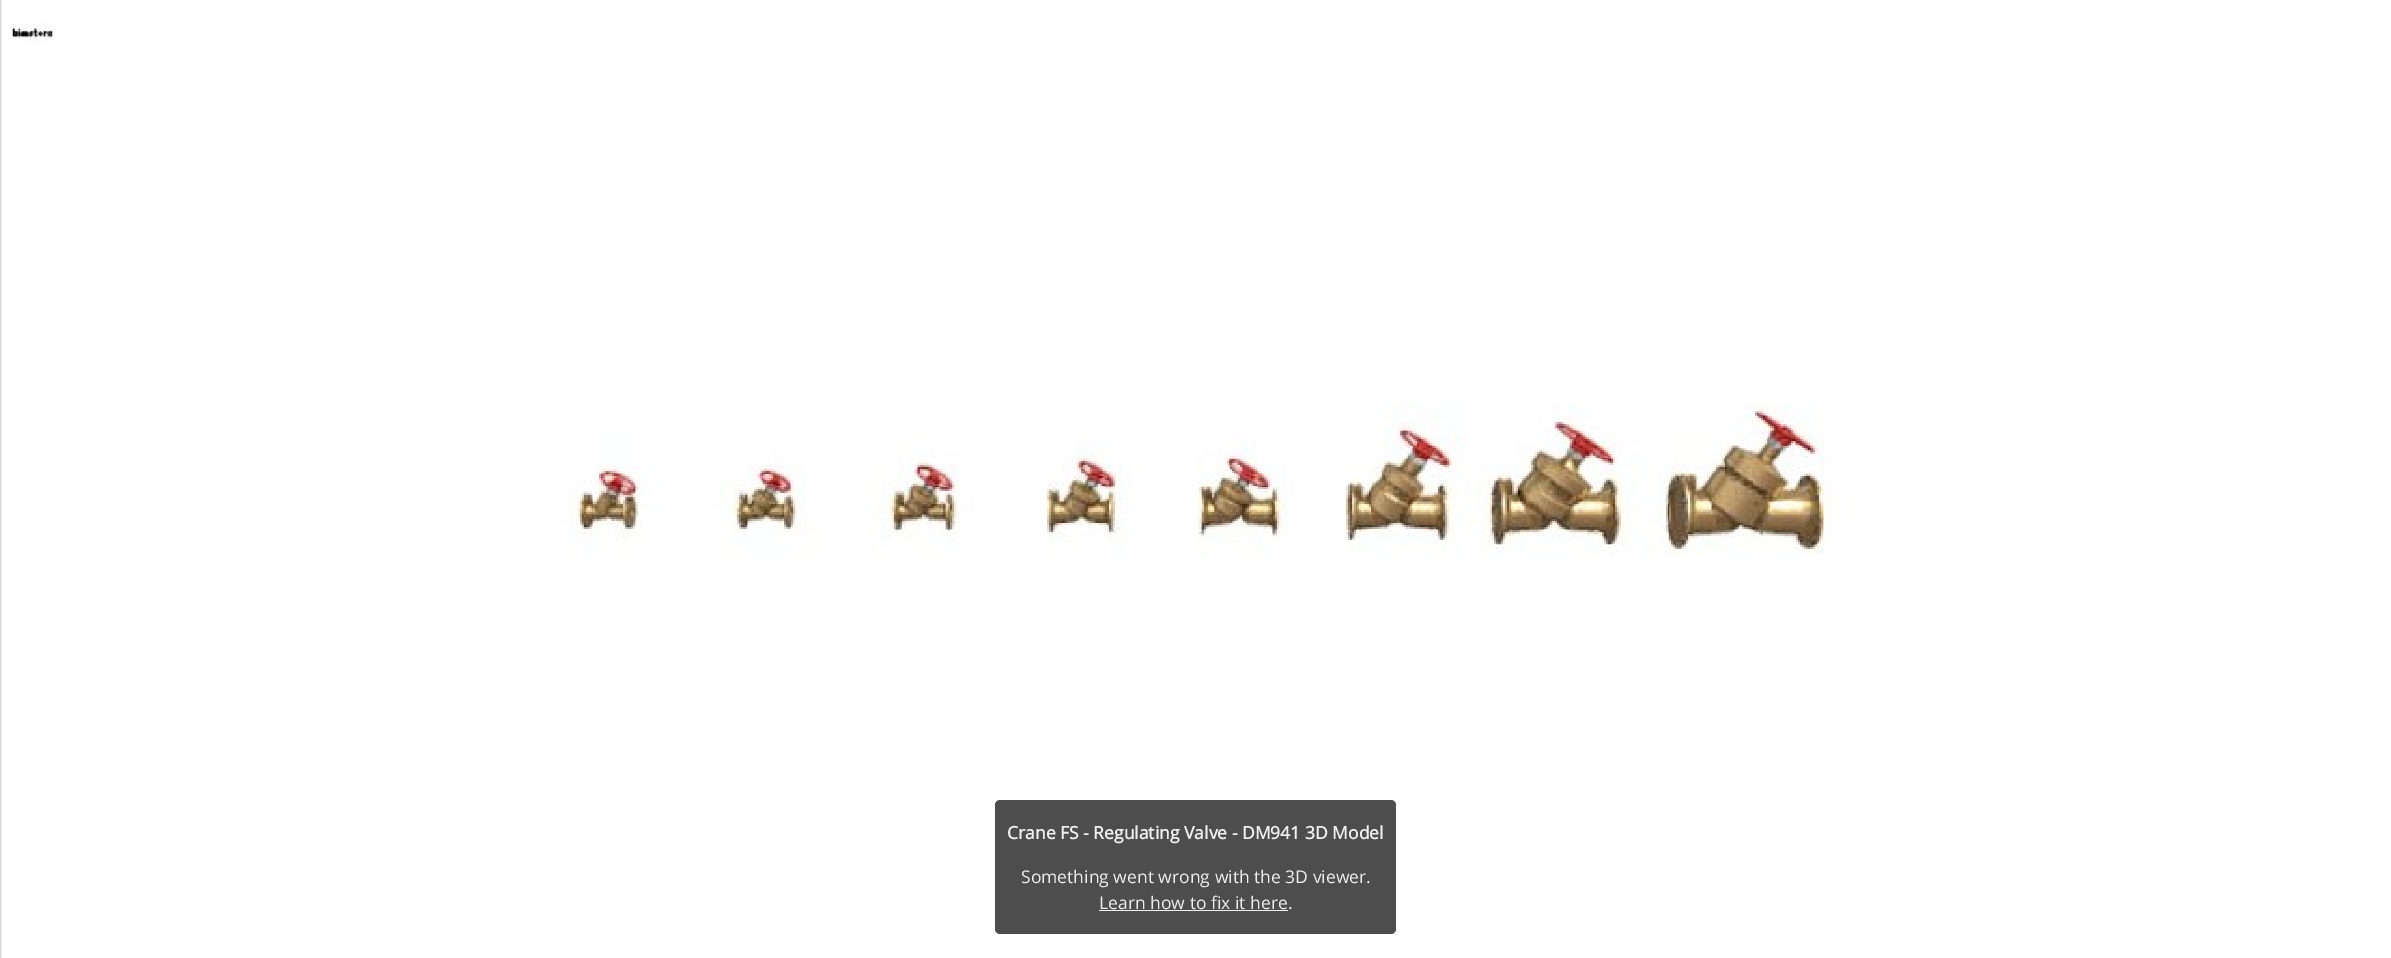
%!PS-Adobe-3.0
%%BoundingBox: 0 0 2391 958
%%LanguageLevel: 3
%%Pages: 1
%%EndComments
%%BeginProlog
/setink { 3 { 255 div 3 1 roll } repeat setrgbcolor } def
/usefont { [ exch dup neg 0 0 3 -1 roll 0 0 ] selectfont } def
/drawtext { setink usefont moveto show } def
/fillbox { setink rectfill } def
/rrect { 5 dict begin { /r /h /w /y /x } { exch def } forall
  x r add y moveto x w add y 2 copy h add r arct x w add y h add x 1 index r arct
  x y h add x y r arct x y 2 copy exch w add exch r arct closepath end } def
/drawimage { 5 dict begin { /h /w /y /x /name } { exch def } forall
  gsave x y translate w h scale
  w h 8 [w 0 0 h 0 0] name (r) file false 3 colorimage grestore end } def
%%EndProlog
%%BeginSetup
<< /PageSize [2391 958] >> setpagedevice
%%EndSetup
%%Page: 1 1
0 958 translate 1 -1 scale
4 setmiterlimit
0 0 2391 958 215 215 215 fillbox
(assets/img2.rgb) 1 0 2390 958 drawimage
(assets/img1.rgb) 12 22 41 21 drawimage
77 77 77 setink
995 800 401 134 5 rrect fill
(Crane FS - Regulating Valve - DM941 3D Model) 1007 839 /OpenSans-Bold 17.5 239 239 239 drawtext
(Something went wrong with the 3D viewer.) 1021 883 /OpenSans-Regular 17.5 239 239 239 drawtext
(Learn how to fix it here.) 1099 909 /OpenSans-Regular 17.5 239 239 239 drawtext
1099 910 189 1 239 239 239 fillbox
showpage
%%EOF
